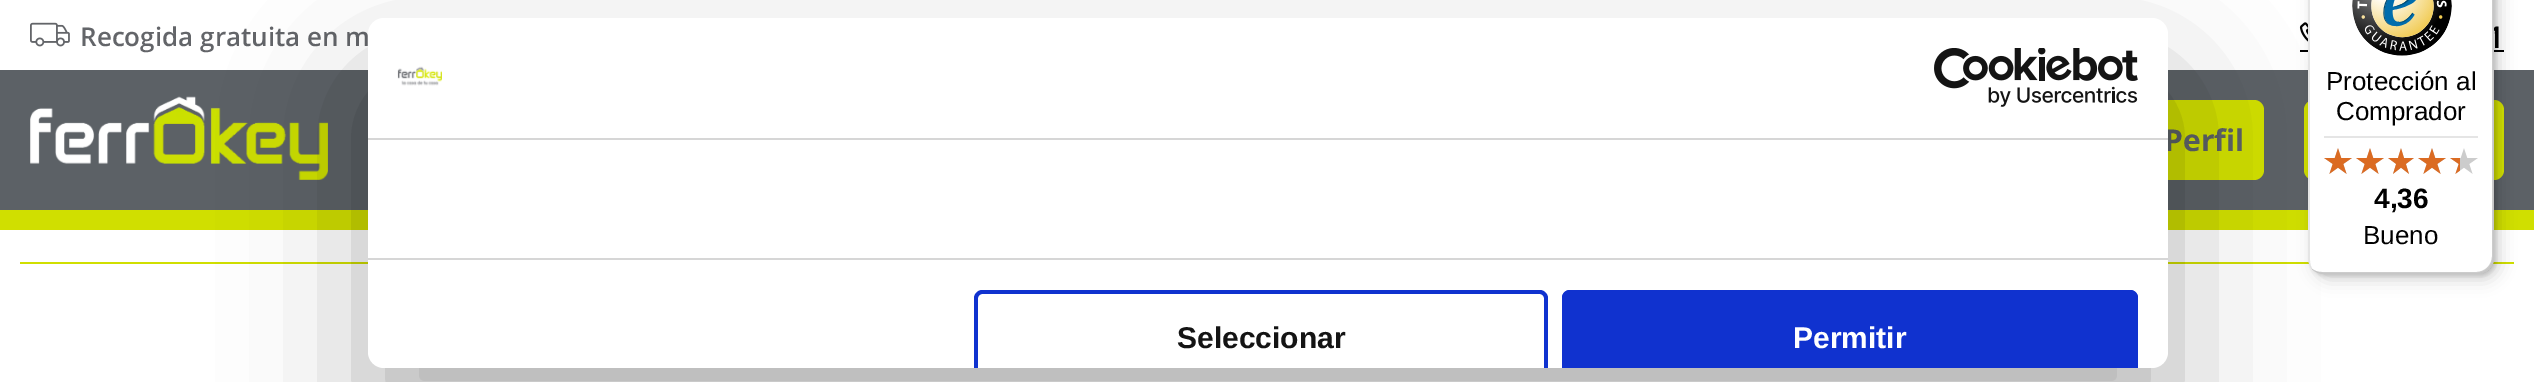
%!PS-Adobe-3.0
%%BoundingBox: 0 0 2534 382
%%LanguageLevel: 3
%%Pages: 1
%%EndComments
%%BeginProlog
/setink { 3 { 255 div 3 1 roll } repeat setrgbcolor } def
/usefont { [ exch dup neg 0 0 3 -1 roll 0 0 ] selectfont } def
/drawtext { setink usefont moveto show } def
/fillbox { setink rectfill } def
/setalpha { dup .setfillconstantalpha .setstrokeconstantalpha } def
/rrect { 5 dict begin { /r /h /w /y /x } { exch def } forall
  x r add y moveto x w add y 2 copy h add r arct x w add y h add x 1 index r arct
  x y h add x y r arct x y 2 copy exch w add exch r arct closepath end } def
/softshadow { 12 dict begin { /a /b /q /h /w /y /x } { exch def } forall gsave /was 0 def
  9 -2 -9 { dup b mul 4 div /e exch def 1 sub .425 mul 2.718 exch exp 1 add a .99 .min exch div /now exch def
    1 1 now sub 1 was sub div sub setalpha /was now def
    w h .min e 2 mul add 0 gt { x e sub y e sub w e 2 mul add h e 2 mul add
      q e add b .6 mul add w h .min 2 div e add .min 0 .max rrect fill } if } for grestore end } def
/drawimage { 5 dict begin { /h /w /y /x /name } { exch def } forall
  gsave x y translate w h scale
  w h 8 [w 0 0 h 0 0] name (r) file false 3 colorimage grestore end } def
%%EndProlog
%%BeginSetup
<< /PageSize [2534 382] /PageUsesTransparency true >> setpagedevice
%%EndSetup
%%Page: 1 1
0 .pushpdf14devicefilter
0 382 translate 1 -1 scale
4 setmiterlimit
0 0 2534 382 255 255 255 fillbox
0 70 2534 140 92 97 102 fillbox
0 210 2534 20 208 223 0 fillbox
(assets/img1.rgb) 30 22 40 25 drawimage
(Recogida gratuita en m) 80 46 /OpenSans-SemiBold 26 99 101 105 drawtext
(assets/img2.rgb) 2299 22 9 20 drawimage
(1) 2487 48 /OpenSans-SemiBold 30 0 0 0 drawtext
2300 50 8 2 0 0 0 fillbox
2494 50 10 2 0 0 0 fillbox
(assets/img3.rgb) 30 96 298 84 drawimage
208 223 0 setink
2044 100 220 80 10 rrect fill
(Perfil) 2164 151 /OpenSans-Bold 30 92 97 102 drawtext
208 223 0 setink
2304 100 80 80 10 rrect fill
2424 100 80 80 10 rrect fill
20 262 2494 2 208 223 0 fillbox
0 0 0 setink
2314 -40 186 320 16 8 0.15 softshadow
2310 -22 186 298 16 2 0.15 softshadow
368 82 1800 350 16 68 0.3 softshadow
255 255 255 setink
2308 -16 186 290 16 rrect fill
0.1 setalpha
0 0 0 setink
2326 -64 moveto 2480 -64 lineto 2484 -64 2487 -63 2490 -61 curveto 2487 -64 2483 -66 2478 -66 curveto 2324 -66 lineto 2315 -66 2308 -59 2308 -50 curveto 2308 258 lineto 2308 263 2310 267 2313 270 curveto 2311 267 2310 264 2310 260 curveto 2310 -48 lineto 2310 -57 2317 -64 2326 -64 curveto closepath fill
0.2 setalpha
2312 269 moveto 2315 272 2319 274 2324 274 curveto 2478 274 lineto 2487 274 2494 267 2494 258 curveto 2494 -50 lineto 2494 -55 2492 -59 2489 -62 curveto 2491 -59 2492 -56 2492 -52 curveto 2492 256 lineto 2492 265 2485 272 2476 272 curveto 2322 272 lineto 2318 272 2315 271 2312 269 curveto closepath fill
50 50 50 setink
2313 269 moveto 2316 272 2320 274 2324 274 curveto 2478 274 lineto 2487 274 2494 267 2494 258 curveto 2494 -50 lineto 2494 -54 2492 -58 2489 -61 curveto 2492 -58 2493 -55 2493 -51 curveto 2493 257 lineto 2493 266 2486 273 2477 273 curveto 2323 273 lineto 2319 273 2316 272 2313 269 curveto closepath fill
0.3 setalpha
255 255 255 setink
2313 269 moveto 2316 272 2320 274 2324 274 curveto 2478 274 lineto 2487 274 2494 267 2494 258 curveto 2494 -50 lineto 2494 -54 2492 -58 2489 -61 curveto 2492 -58 2493 -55 2493 -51 curveto 2493 257 lineto 2493 266 2486 273 2477 273 curveto 2323 273 lineto 2319 273 2316 272 2313 269 curveto closepath fill
1 setalpha
(assets/img4.rgb) 2352 0 100 56 drawimage
(Protección al) 2326 90 /LiberationSans-Regular 26 0 0 0 drawtext
(Comprador) 2336 120 /LiberationSans-Regular 26 0 0 0 drawtext
2324 136 154 2 229 229 229 fillbox
(assets/img5.rgb) 2324 148 28 26 drawimage
(assets/img5.rgb) 2356 148 28 26 drawimage
(assets/img6.rgb) 2388 148 26 26 drawimage
(assets/img5.rgb) 2418 148 28 26 drawimage
(assets/img5.rgb) 2450 148 28 26 drawimage
(assets/img7.rgb) 2324 148 28 26 drawimage
(assets/img7.rgb) 2356 148 28 26 drawimage
(assets/img8.rgb) 2388 148 26 26 drawimage
(assets/img7.rgb) 2418 148 28 26 drawimage
(assets/img9.rgb) 2450 158 10 16 drawimage
(4,36) 2374 208 /LiberationSans-Bold 28 0 0 0 drawtext
(Bueno) 2363 244 /LiberationSans-Regular 26 0 0 0 drawtext
255 255 255 setink
368 18 1800 350 16 rrect fill
368 138 1800 2 214 214 214 fillbox
(assets/img10.rgb) 397 66 45 20 drawimage
(assets/img11.rgb) 1934 48 204 59 drawimage
368 258 1800 2 214 214 214 fillbox
16 50 207 setink
982 290 moveto 978 290 974 294 974 298 curveto 974 368 lineto 978 368 lineto 978 298 lineto 978 296 980 294 982 294 curveto 1540 294 lineto 1542 294 1544 296 1544 298 curveto 1544 368 lineto 1548 368 lineto 1548 298 lineto 1548 294 1544 290 1540 290 curveto closepath fill
(Seleccionar) 1177 348 /LiberationSans-Bold 30 20 20 20 drawtext
16 50 207 setink
1570 290 moveto 2130 290 lineto 2134.5 290 2138 293.5 2138 298 curveto 2138 368 lineto 1562 368 lineto 1562 298 lineto 1562 293.5 1565.5 290 1570 290 curveto closepath fill
1570 290 moveto 1566 290 1562 294 1562 298 curveto 1562 368 lineto 1566 368 lineto 1566 298 lineto 1566 296 1568 294 1570 294 curveto 2130 294 lineto 2132 294 2134 296 2134 298 curveto 2134 368 lineto 2138 368 lineto 2138 298 lineto 2138 294 2134 290 2130 290 curveto closepath fill
(Permitir) 1793 348 /LiberationSans-Bold 30 255 255 255 drawtext
.poppdf14devicefilter showpage
%%EOF
